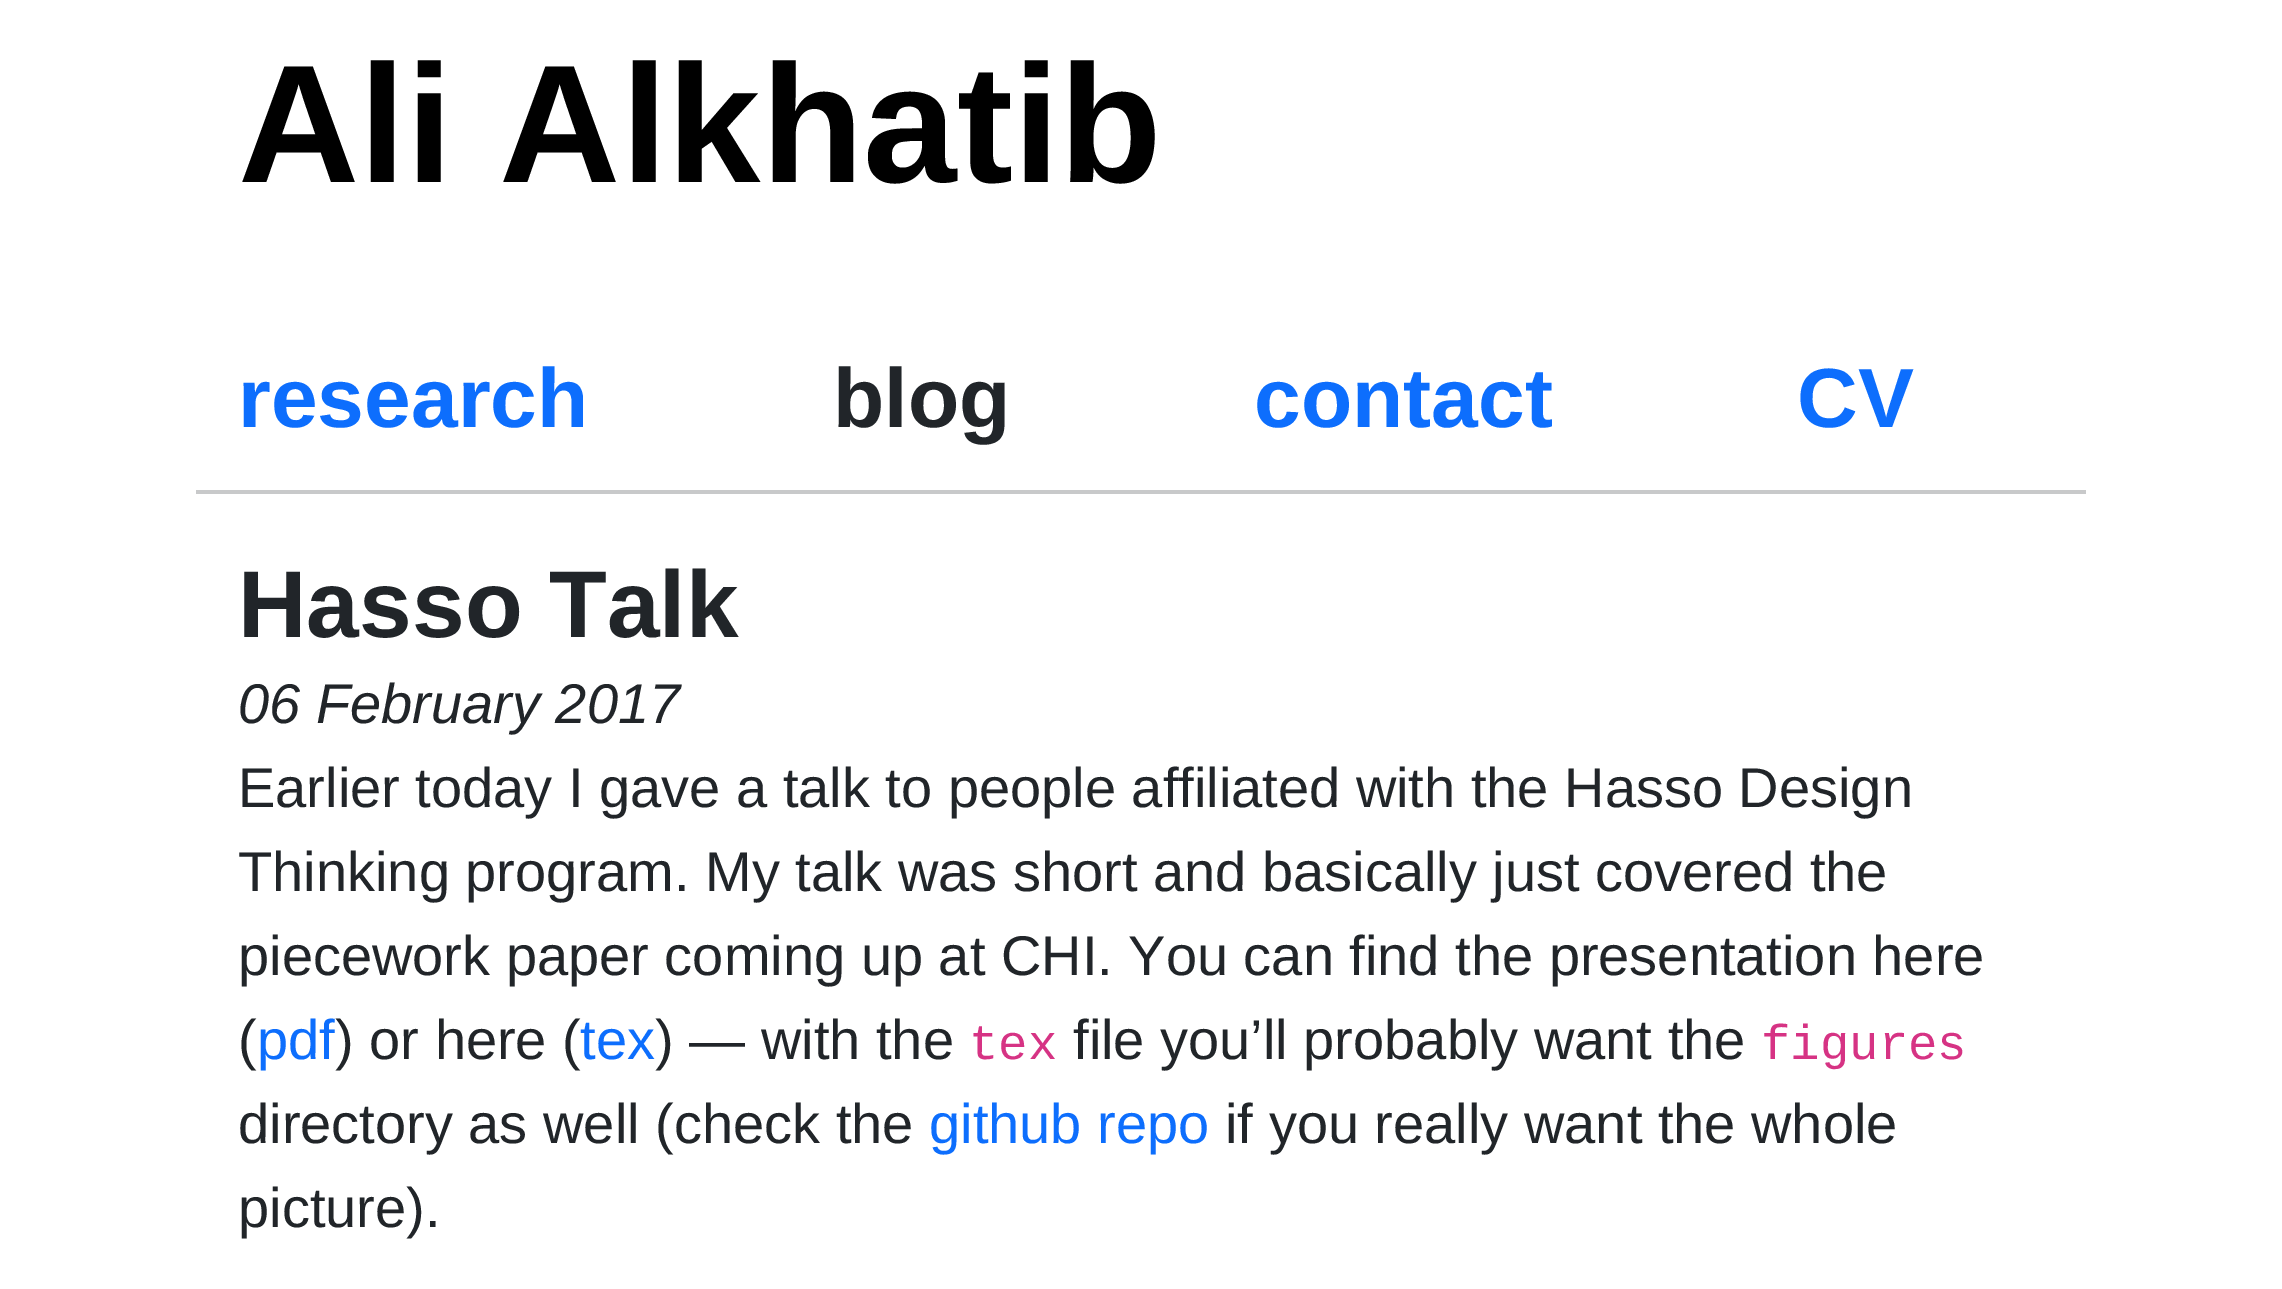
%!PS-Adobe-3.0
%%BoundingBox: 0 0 2282 1289
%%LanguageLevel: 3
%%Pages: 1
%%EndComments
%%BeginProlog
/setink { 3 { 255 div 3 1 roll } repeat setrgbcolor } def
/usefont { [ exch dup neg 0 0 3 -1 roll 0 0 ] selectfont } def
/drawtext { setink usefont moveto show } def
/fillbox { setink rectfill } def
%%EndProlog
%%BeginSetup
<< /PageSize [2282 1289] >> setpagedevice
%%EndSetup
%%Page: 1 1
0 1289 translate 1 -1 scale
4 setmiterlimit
0 0 2282 1289 255 255 255 fillbox
(Ali Alkhatib) 238 182 /LiberationSans-Bold 168 0 0 0 drawtext
(research) 238 427 /LiberationSans-Bold 84 13 110 253 drawtext
(blog) 833 427 /LiberationSans-Bold 84 33 37 41 drawtext
(contact) 1254 427 /LiberationSans-Bold 84 13 110 253 drawtext
(CV) 1797 427 /LiberationSans-Bold 84 13 110 253 drawtext
196 490 1890 4 200 201 202 fillbox
(Hasso Talk) 238 637 /LiberationSans-Bold 94.75 33 37 41 drawtext
(06 February 2017) 238 723 /LiberationSans-Italic 56 33 37 41 drawtext
(Earlier today I gave a talk to people affiliated with the Hasso Design) 238 807 /LiberationSans-Regular 56 33 37 41 drawtext
(Thinking program. My talk was short and basically just covered the) 238 891 /LiberationSans-Regular 56 33 37 41 drawtext
(piecework paper coming up at CHI. You can find the presentation here) 238 975 /LiberationSans-Regular 56 33 37 41 drawtext
(\() 238 1059 /LiberationSans-Regular 56 33 37 41 drawtext
(pdf) 257 1059 /LiberationSans-Regular 56 13 110 253 drawtext
(\) or here \() 335 1059 /LiberationSans-Regular 56 33 37 41 drawtext
(tex) 580 1059 /LiberationSans-Regular 56 13 110 253 drawtext
(\) — with the) 655 1059 /LiberationSans-Regular 56 33 37 41 drawtext
(tex) 969 1059 /LiberationMono-Regular 49 214 51 132 drawtext
(file you’ll probably want the) 1073 1059 /LiberationSans-Regular 56 33 37 41 drawtext
(figures) 1761 1059 /LiberationMono-Regular 49 214 51 132 drawtext
(directory as well \(check the) 238 1143 /LiberationSans-Regular 56 33 37 41 drawtext
(github repo) 929 1143 /LiberationSans-Regular 56 13 110 253 drawtext
(if you really want the whole) 1225 1143 /LiberationSans-Regular 56 33 37 41 drawtext
(picture\).) 238 1227 /LiberationSans-Regular 56 33 37 41 drawtext
showpage
%%EOF
